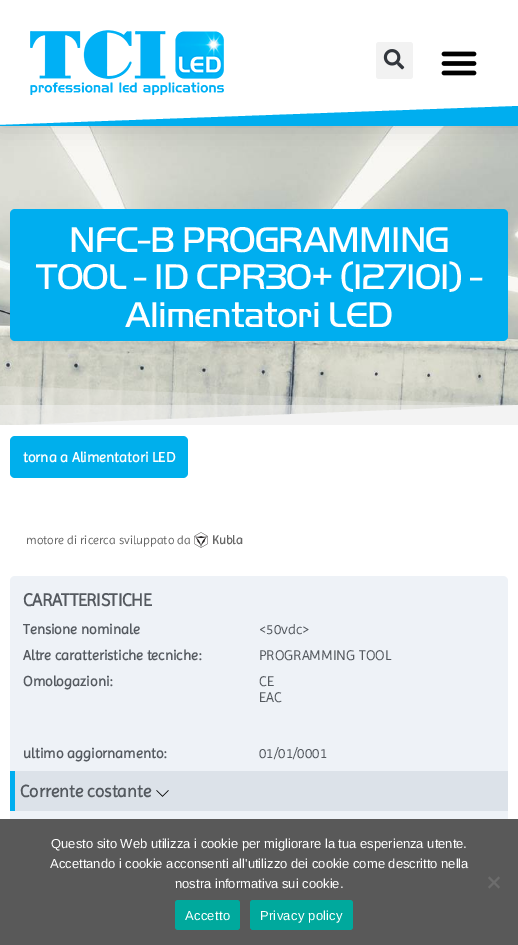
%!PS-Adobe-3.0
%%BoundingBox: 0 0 518 945
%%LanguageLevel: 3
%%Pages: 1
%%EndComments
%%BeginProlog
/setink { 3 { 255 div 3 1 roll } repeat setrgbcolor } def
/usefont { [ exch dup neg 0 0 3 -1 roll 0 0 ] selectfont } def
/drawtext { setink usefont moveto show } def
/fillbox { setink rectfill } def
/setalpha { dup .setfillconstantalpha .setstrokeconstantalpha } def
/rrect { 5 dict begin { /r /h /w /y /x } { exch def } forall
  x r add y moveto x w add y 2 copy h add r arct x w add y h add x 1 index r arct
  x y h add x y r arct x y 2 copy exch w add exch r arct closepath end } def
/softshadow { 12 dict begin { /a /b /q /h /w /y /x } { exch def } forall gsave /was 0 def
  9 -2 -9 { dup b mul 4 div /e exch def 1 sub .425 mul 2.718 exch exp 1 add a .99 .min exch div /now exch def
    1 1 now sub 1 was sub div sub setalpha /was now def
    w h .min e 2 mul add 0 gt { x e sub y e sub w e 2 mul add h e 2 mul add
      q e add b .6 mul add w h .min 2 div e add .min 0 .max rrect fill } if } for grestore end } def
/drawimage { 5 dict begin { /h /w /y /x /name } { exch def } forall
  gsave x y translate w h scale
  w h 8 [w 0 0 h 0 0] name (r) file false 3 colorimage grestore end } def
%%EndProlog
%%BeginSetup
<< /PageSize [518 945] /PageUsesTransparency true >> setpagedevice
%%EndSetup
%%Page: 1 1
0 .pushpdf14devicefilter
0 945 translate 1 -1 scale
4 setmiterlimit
0 0 518 945 255 255 255 fillbox
(assets/img4.rgb) 0 126 518 299 drawimage
0 0 0 setink
0 0 518 125 0 12 0.15 softshadow
0 0 518 125 255 255 255 fillbox
(assets/img1.rgb) 30 30 194 65 drawimage
242 242 242 setink
376 42 37 37 3 rrect fill
(assets/img2.rgb) 383 49 22 21 drawimage
(assets/img3.rgb) 441 51 36 25 drawimage
0 174 239 setink
-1 125 moveto -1 126 lineto 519 126 lineto 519 106 lineto closepath fill
10 209 498 132 5 rrect fill
/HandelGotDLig-Regular 37.1 usefont
255 255 255 setink
69 252 moveto -0.75 0 (NFC-B PROGRAMMING) ashow
36 289 moveto -0.75 0 (TOOL - ID CPR30+ \(127101\) -) ashow
125 327 moveto -0.75 0 (Alimentatori LED) ashow
243 243 243 setink
-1 426 moveto 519 426 lineto 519 405 lineto closepath fill
0.5 setalpha
0 405 517 20 243 243 243 fillbox
0.25 setalpha
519 426 moveto -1 426 lineto -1 386 lineto 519 405 lineto closepath fill
1 setalpha
0 425 518 1 255 255 255 fillbox
0 175 236 setink
10 436 178 42 5 rrect fill
(torna a Alimentatori LED) 23 462 /Imprima-Bold 14.25 255 255 255 drawtext
(motore di ricerca sviluppato da) 26 544 /Imprima-Regular 12.2 102 102 102 drawtext
(assets/img5.rgb) 194 532 14 16 drawimage
(Kubla) 212 544 /Imprima-Bold 12.2 102 102 102 drawtext
238 242 247 setink
10 576 498 308 5 rrect fill
/Imprima-Bold 18 usefont
84 89 95 setink
23 606 moveto -0.4 0 (CARATTERISTICHE) ashow
(Tensione nominale) 23 634 /Imprima-Bold 14.25 84 89 95 drawtext
(<50vdc>) 259 634 /Imprima-Regular 14.25 84 89 95 drawtext
(Altre caratteristiche tecniche:) 23 660 /Imprima-Bold 14.25 84 89 95 drawtext
(PROGRAMMING TOOL) 259 660 /Imprima-Regular 14.25 84 89 95 drawtext
(Omologazioni:) 23 686 /Imprima-Bold 14.25 84 89 95 drawtext
(CE) 259 686 /Imprima-Regular 14.25 84 89 95 drawtext
(EAC) 259 702 /Imprima-Regular 14.25 84 89 95 drawtext
(ultimo aggiornamento:) 23 758 /Imprima-Bold 14.25 84 89 95 drawtext
(01/01/0001) 259 758 /Imprima-Regular 14.25 84 89 95 drawtext
15 771 493 40 220 226 233 fillbox
10 771 5 40 0 174 239 fillbox
(Corrente costante) 20 797 /Imprima-Bold 17.25 84 89 95 drawtext
(assets/img6.rgb) 156 790 13 7 drawimage
0 819 518 126 89 89 89 fillbox
(Questo sito Web utilizza i cookie per migliorare la tua esperienza utente.) 51 848 /LiberationSans-Regular 13 255 255 255 drawtext
(Accettando i cookie acconsenti all'utilizzo dei cookie come descritto nella) 50 868 /LiberationSans-Regular 13 255 255 255 drawtext
(nostra informativa sui cookie.) 175 888 /LiberationSans-Regular 13 255 255 255 drawtext
109 109 109 setink
498.5 876.5 moveto 500 878 lineto 489.5 888.5 lineto 488 887 lineto closepath fill
488 878 moveto 489.5 876.5 lineto 500 887 lineto 498.5 888.5 lineto closepath fill
0 169 157 setink
175 900 65 30 3 rrect fill
255 255 255 setink
185 920 moveto 0.25 0 (Accetto) ashow
0 169 157 setink
250 900 103 30 3 rrect fill
255 255 255 setink
260 920 moveto 0.25 0 (Privacy policy) ashow
.poppdf14devicefilter showpage
%%EOF
